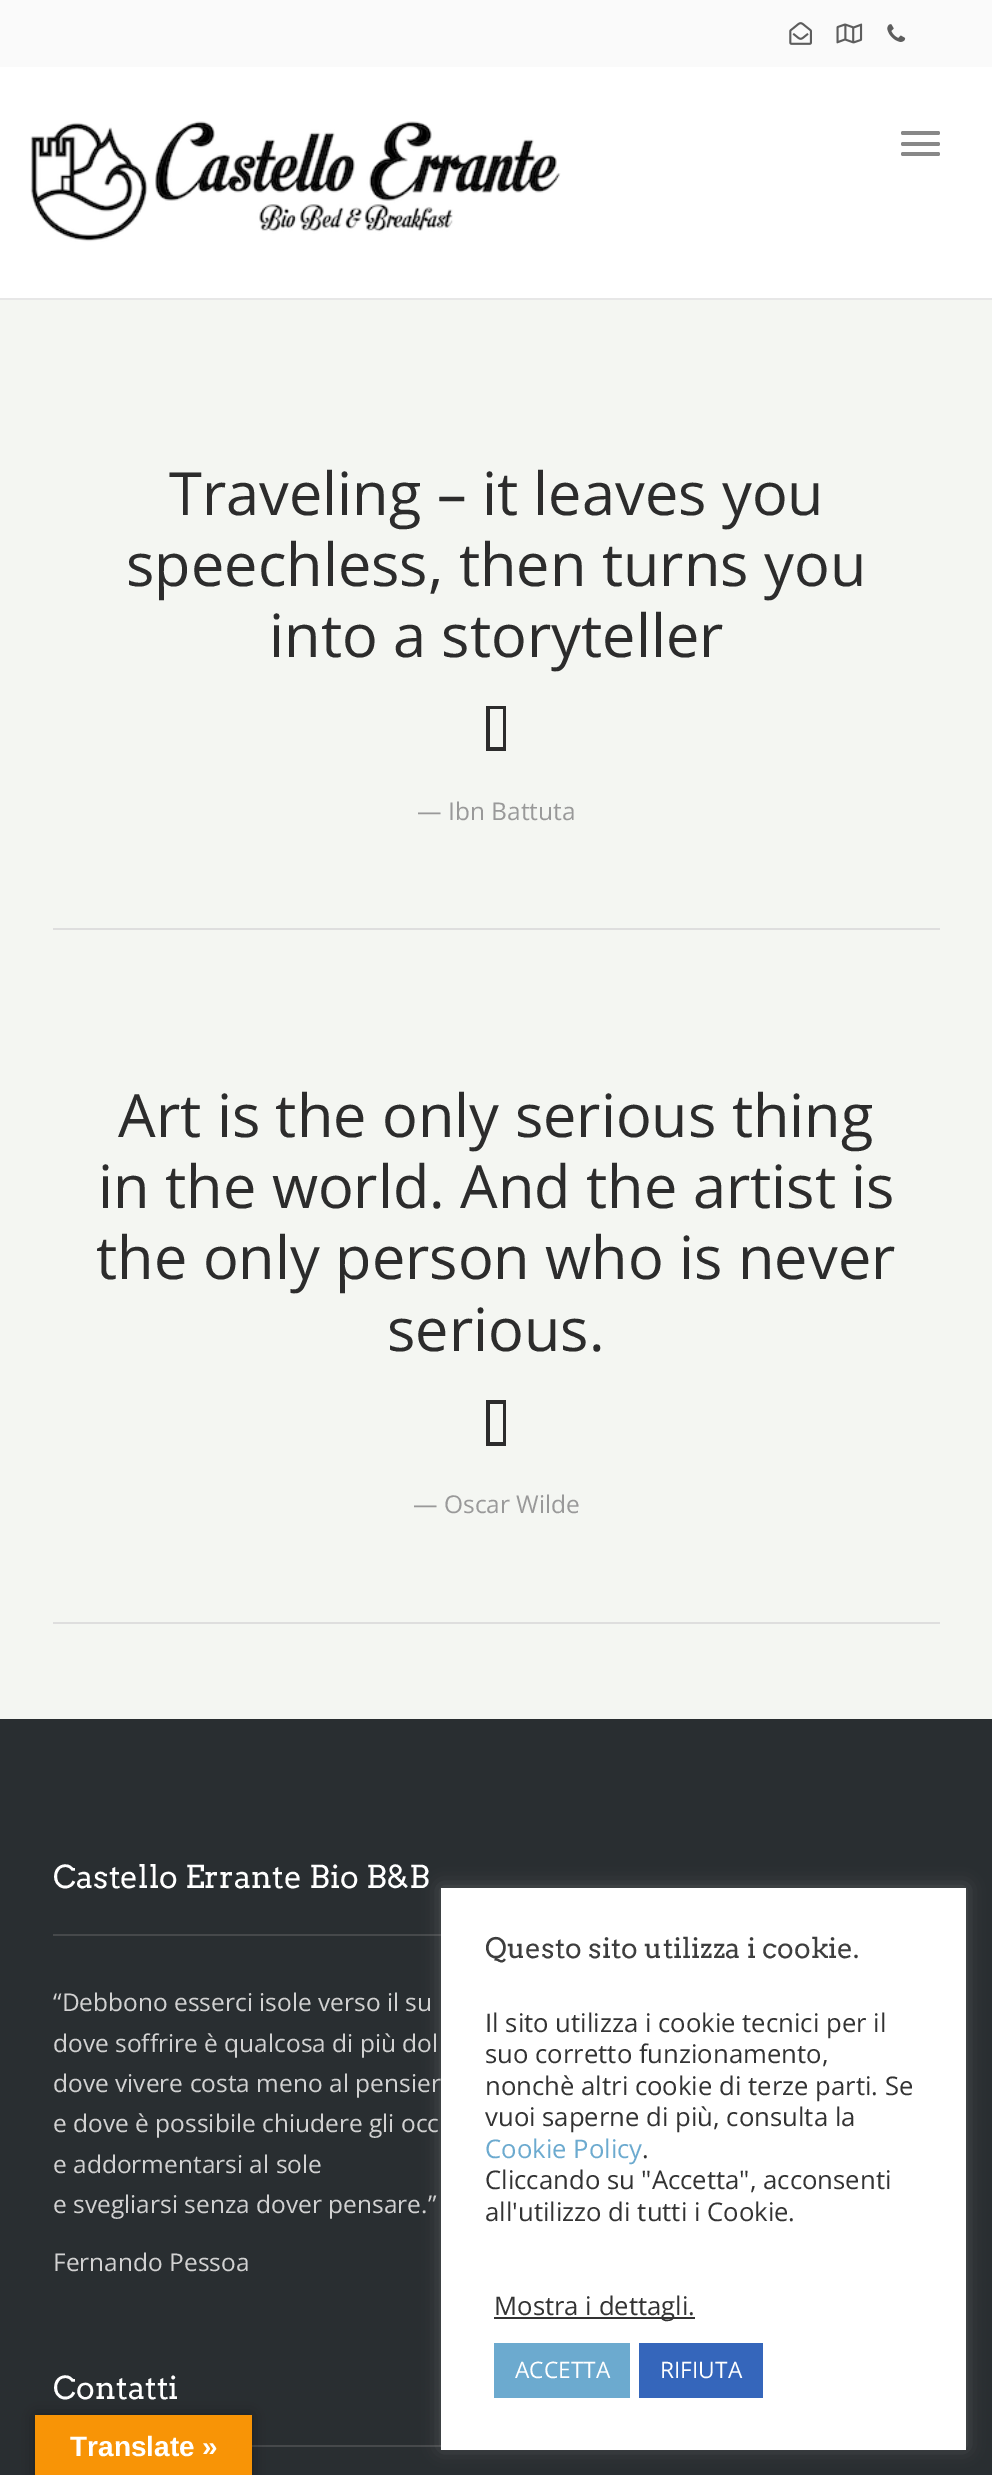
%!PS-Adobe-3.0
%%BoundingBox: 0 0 992 2475
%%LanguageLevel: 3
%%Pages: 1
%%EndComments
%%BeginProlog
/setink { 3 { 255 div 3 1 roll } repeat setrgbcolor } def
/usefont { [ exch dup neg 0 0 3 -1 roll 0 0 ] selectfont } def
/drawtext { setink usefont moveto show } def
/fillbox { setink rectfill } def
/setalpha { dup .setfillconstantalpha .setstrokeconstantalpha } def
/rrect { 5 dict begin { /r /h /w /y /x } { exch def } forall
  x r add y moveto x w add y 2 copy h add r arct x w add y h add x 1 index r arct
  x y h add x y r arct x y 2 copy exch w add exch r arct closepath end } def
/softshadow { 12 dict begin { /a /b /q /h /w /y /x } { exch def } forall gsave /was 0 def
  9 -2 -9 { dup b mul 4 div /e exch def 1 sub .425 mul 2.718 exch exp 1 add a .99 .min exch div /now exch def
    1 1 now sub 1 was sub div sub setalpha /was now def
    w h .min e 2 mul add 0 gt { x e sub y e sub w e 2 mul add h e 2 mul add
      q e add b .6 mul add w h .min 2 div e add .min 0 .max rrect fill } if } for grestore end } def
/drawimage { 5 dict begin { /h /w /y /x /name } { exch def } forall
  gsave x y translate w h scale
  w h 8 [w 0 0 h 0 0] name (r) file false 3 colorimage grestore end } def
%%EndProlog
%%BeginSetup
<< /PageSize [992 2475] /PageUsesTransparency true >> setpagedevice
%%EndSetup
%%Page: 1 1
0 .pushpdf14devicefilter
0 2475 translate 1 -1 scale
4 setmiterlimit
0 0 992 2475 244 246 242 fillbox
0 67 992 231 255 255 255 fillbox
0 298 992 2 231 231 231 fillbox
0 0 992 67 250 250 250 fillbox
(assets/img1.rgb) 789 22 23 23 drawimage
(assets/img2.rgb) 836 23 27 21 drawimage
(assets/img3.rgb) 887 24 19 18 drawimage
(assets/img4.rgb) 30 121 531 121 drawimage
136 136 136 setink
901 131 39 4 2 rrect fill
901 142 39 4 2 rrect fill
901 152 39 4 2 rrect fill
53 928 887 2 222 222 222 fillbox
(Traveling – it leaves you) 169 515 /OpenSans-Regular 59.5 44 44 44 drawtext
(speechless, then turns you) 126 586 /OpenSans-Regular 59.5 44 44 44 drawtext
(into a storyteller) 269 657 /OpenSans-Regular 59.5 44 44 44 drawtext
503 747 moveto 490 747 lineto 490 709 lineto 503 709 lineto closepath 506 751 moveto 506 706 lineto 486 706 lineto 486 751 lineto closepath fill
(— Ibn Battuta) 417 820 /OpenSans-Regular 24.5 153 153 153 drawtext
53 1622 887 2 222 222 222 fillbox
(Art is the only serious thing) 118 1137 /OpenSans-Regular 59.5 44 44 44 drawtext
(in the world. And the artist is) 98 1208 /OpenSans-Regular 59.5 44 44 44 drawtext
(the only person who is never) 96 1279 /OpenSans-Regular 59.5 44 44 44 drawtext
(serious.) 387 1351 /OpenSans-Regular 59.5 44 44 44 drawtext
503 1442 moveto 490 1442 lineto 490 1404 lineto 503 1404 lineto closepath 506 1446 moveto 506 1400 lineto 486 1400 lineto 486 1446 lineto closepath fill
(— Oscar Wilde) 413 1513 /OpenSans-Regular 24.5 153 153 153 drawtext
0 1719 992 756 41 46 49 fillbox
53 1934 388 2 70 73 75 fillbox
(Castello Errante Bio B&B) 53 1888 /Arvo-Regular 31.5 255 255 255 drawtext
(“Debbono esserci isole verso il su) 53 2011 /OpenSans-Regular 24.5 210 210 210 drawtext
(dove soffrire è qualcosa di più dol) 53 2052 /OpenSans-Regular 24.5 210 210 210 drawtext
(dove vivere costa meno al pensier) 53 2092 /OpenSans-Regular 24.5 210 210 210 drawtext
(e dove è possibile chiudere gli occ) 53 2132 /OpenSans-Regular 24.5 210 210 210 drawtext
(e addormentarsi al sole) 53 2173 /OpenSans-Regular 24.5 210 210 210 drawtext
(e svegliarsi senza dover pensare.”) 53 2213 /OpenSans-Regular 24.5 210 210 210 drawtext
(Fernando Pessoa) 53 2271 /OpenSans-Regular 24.5 210 210 210 drawtext
252 2445 189 2 70 73 75 fillbox
(Contatti) 53 2399 /Arvo-Regular 31.5 255 255 255 drawtext
172 171 171 setink
441 1887 525 561 0 9 0.3 softshadow
441 1888 525 562 255 255 255 fillbox
(Questo sito utilizza i cookie.) 485 1958 /Arvo-Regular 28 62 62 62 drawtext
(Il sito utilizza i cookie tecnici per il) 485 2032 /OpenSans-Regular 25.7 51 51 51 drawtext
(suo corretto funzionamento,) 485 2063 /OpenSans-Regular 25.7 51 51 51 drawtext
(nonchè altri cookie di terze parti. Se) 485 2095 /OpenSans-Regular 25.7 51 51 51 drawtext
(vuoi saperne di più, consulta la) 485 2126 /OpenSans-Regular 25.7 51 51 51 drawtext
(Cookie Policy) 485 2158 /OpenSans-Regular 25.7 108 170 207 drawtext
(.) 642 2158 /OpenSans-Regular 25.7 51 51 51 drawtext
(Cliccando su "Accetta", acconsenti) 485 2189 /OpenSans-Regular 25.7 51 51 51 drawtext
(all'utilizzo di tutti i Cookie.) 485 2221 /OpenSans-Regular 25.7 51 51 51 drawtext
494 2317 201 2 51 51 51 fillbox
(Mostra i dettagli.) 494 2315 /OpenSans-Regular 25.7 51 51 51 drawtext
494 2343 136 55 108 170 207 fillbox
(ACCETTA) 515 2378 /OpenSans-Regular 22.75 255 255 255 drawtext
639 2343 124 55 53 102 187 fillbox
(RIFIUTA) 660 2378 /OpenSans-Regular 22.75 255 255 255 drawtext
0 0 0 setink
35 2415 217 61 0 8 0.3 softshadow
35 2415 217 60 248 148 6 fillbox
(Translate ») 70 2456 /LiberationSans-Bold 28 255 255 255 drawtext
.poppdf14devicefilter showpage
%%EOF
